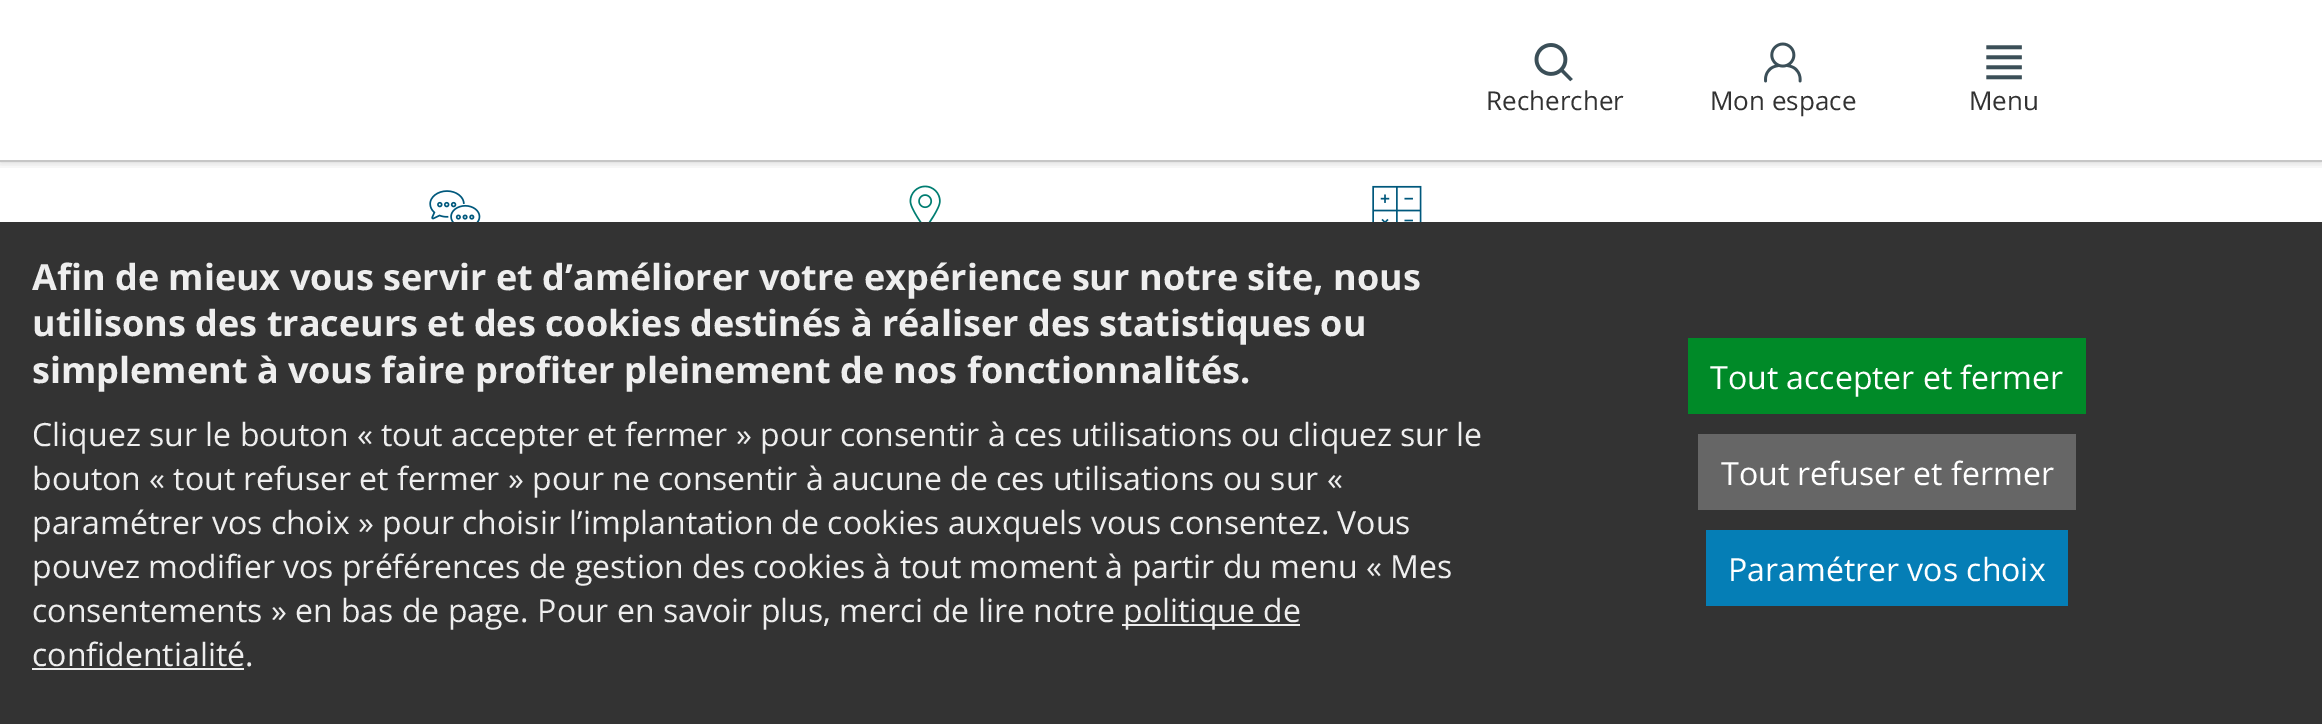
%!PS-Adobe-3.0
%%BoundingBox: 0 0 2322 724
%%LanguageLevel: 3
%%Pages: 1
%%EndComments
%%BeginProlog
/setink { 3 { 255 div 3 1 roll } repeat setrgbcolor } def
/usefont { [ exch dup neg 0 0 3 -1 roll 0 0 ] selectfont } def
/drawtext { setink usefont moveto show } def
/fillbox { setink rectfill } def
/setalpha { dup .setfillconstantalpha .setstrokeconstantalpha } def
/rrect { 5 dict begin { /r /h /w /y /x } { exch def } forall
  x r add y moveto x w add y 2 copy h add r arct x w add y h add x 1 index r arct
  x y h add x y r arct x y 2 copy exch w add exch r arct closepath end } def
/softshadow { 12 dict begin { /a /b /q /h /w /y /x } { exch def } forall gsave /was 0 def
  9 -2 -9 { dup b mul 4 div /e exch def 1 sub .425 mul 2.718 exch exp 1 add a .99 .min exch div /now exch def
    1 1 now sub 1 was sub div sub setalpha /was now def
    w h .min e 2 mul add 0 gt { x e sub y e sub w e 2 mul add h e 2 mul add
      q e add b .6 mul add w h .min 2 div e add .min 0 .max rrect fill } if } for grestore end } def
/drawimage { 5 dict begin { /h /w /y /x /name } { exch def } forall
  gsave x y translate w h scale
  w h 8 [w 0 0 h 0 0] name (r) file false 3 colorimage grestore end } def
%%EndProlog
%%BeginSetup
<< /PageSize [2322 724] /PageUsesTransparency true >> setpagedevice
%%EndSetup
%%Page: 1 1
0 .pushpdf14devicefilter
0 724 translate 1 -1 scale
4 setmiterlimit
0 0 2322 724 255 255 255 fillbox
gsave
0 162 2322 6 rectclip
0 0 0 setink
0 0 2322 162 0 5 0.2 softshadow
grestore
0 160 2322 2 198 198 198 fillbox
(assets/img1.rgb) 1534 43 39 39 drawimage
(Rechercher) 1486 110 /OpenSans-Regular 26 50 50 50 drawtext
(assets/img2.rgb) 1764 42 38 41 drawimage
(Mon espace) 1710 110 /OpenSans-Regular 26 50 50 50 drawtext
(assets/img3.rgb) 1986 45 36 35 drawimage
(Menu) 1969 110 /OpenSans-Regular 26 50 50 50 drawtext
(assets/img4.rgb) 429 190 52 32 drawimage
(assets/img5.rgb) 909 185 32 37 drawimage
(assets/img6.rgb) 1372 185 50 37 drawimage
0 222 2322 502 51 51 51 fillbox
(Afin de mieux vous servir et d’améliorer votre expérience sur notre site, nous) 32 290 /OpenSans-Bold 36 238 238 238 drawtext
(utilisons des traceurs et des cookies destinés à réaliser des statistiques ou) 32 336 /OpenSans-Bold 36 238 238 238 drawtext
(simplement à vous faire profiter pleinement de nos fonctionnalités.) 32 383 /OpenSans-Bold 36 238 238 238 drawtext
(Cliquez sur le bouton « tout accepter et fermer » pour consentir à ces utilisations ou cliquez sur le) 32 446 /OpenSans-Regular 32 238 238 238 drawtext
(bouton « tout refuser et fermer » pour ne consentir à aucune de ces utilisations ou sur «) 32 490 /OpenSans-Regular 32 238 238 238 drawtext
(paramétrer vos choix » pour choisir l’implantation de cookies auxquels vous consentez. Vous) 32 534 /OpenSans-Regular 32 238 238 238 drawtext
(pouvez modifier vos préférences de gestion des cookies à tout moment à partir du menu « Mes) 32 578 /OpenSans-Regular 32 238 238 238 drawtext
(consentements » en bas de page. Pour en savoir plus, merci de lire notre) 32 622 /OpenSans-Regular 32 238 238 238 drawtext
1122 624 178 2 238 238 238 fillbox
(politique de) 1123 622 /OpenSans-Regular 32 238 238 238 drawtext
(confidentialité.) 32 666 /OpenSans-Regular 32 238 238 238 drawtext
32 668 212 2 238 238 238 fillbox
1688 338 398 76 0 138 40 fillbox
(Tout accepter et fermer) 1710 389 /OpenSans-Regular 32 255 255 255 drawtext
1698 434 378 76 102 102 102 fillbox
(Tout refuser et fermer) 1721 485 /OpenSans-Regular 32 255 255 255 drawtext
1706 530 362 76 5 126 182 fillbox
(Paramétrer vos choix) 1728 581 /OpenSans-Regular 32 255 255 255 drawtext
.poppdf14devicefilter showpage
%%EOF
